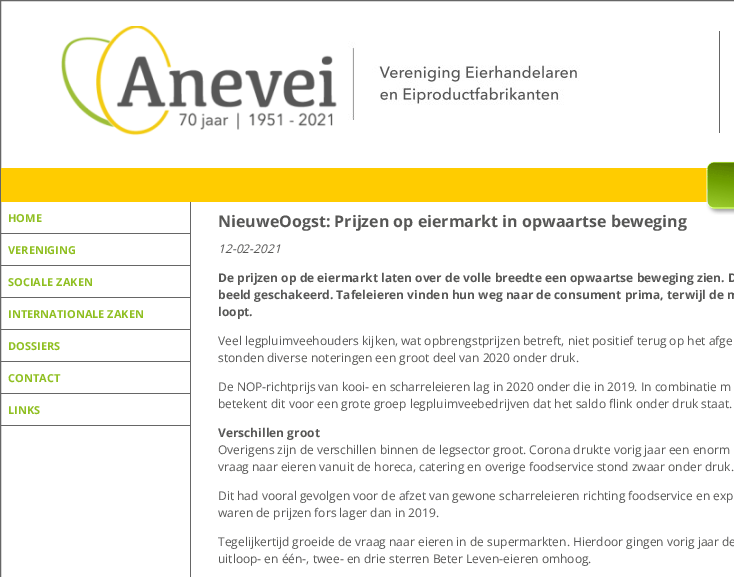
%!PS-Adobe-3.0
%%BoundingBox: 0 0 734 577
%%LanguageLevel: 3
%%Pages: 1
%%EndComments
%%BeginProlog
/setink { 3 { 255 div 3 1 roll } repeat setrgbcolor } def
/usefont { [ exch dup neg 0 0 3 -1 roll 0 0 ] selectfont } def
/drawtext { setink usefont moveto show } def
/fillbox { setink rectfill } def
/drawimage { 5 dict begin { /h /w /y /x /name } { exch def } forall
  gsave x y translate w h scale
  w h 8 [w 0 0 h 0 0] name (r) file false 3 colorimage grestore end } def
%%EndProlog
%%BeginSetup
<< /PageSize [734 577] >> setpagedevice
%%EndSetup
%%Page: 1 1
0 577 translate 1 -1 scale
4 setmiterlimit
0 0 734 577 255 255 255 fillbox
102 102 102 setink
0.5 0.5 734 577 rectstroke
(assets/img1.rgb) 61 26 276 110 drawimage
(assets/img2.rgb) 348 41 232 79 drawimage
719 31 1 102 102 102 102 fillbox
1 168 706 34 255 204 0 fillbox
(assets/img3.rgb) 706 161 28 54 drawimage
190 202 1 375 102 102 102 fillbox
1 233 190 1 102 102 102 fillbox
(HOME) 8 222 /OpenSans-Bold 11 143 191 33 drawtext
1 265 190 1 102 102 102 fillbox
(VERENIGING) 8 254 /OpenSans-Bold 11 143 191 33 drawtext
1 297 190 1 102 102 102 fillbox
(SOCIALE ZAKEN) 8 286 /OpenSans-Bold 11 143 191 33 drawtext
1 329 190 1 102 102 102 fillbox
(INTERNATIONALE ZAKEN) 8 318 /OpenSans-Bold 11 143 191 33 drawtext
1 361 190 1 102 102 102 fillbox
(DOSSIERS) 8 350 /OpenSans-Bold 11 143 191 33 drawtext
1 393 190 1 102 102 102 fillbox
(CONTACT) 8 382 /OpenSans-Bold 11 143 191 33 drawtext
1 425 190 1 102 102 102 fillbox
(LINKS) 8 414 /OpenSans-Bold 11 143 191 33 drawtext
(NieuweOogst: Prijzen op eiermarkt in opwaartse beweging) 218 227 /OpenSans-Bold 16 87 87 86 drawtext
(12-02-2021) 218 253 /OpenSans-Italic 12 87 87 86 drawtext
(De prijzen op de eiermarkt laten over de volle breedte een opwaartse beweging zien. D) 218 282 /OpenSans-Bold 12 87 87 86 drawtext
(beeld geschakeerd. Tafeleieren vinden hun weg naar de consument prima, terwijl de m) 218 299 /OpenSans-Bold 12 87 87 86 drawtext
(loopt.) 218 316 /OpenSans-Bold 12 87 87 86 drawtext
(Veel legpluimveehouders kijken, wat opbrengstprijzen betreft, niet positief terug op het afge) 218 345 /OpenSans-Regular 12 87 87 86 drawtext
(stonden diverse noteringen een groot deel van 2020 onder druk.) 218 362 /OpenSans-Regular 12 87 87 86 drawtext
(De NOP-richtprijs van kooi- en scharreleieren lag in 2020 onder die in 2019. In combinatie m) 218 391 /OpenSans-Regular 12 87 87 86 drawtext
(betekent dit voor een grote groep legpluimveebedrijven dat het saldo flink onder druk staat.) 218 408 /OpenSans-Regular 12 87 87 86 drawtext
(Verschillen groot) 218 437 /OpenSans-Bold 12 87 87 86 drawtext
(Overigens zijn de verschillen binnen de legsector groot. Corona drukte vorig jaar een enorm) 218 454 /OpenSans-Regular 12 87 87 86 drawtext
(vraag naar eieren vanuit de horeca, catering en overige foodservice stond zwaar onder druk.) 218 471 /OpenSans-Regular 12 87 87 86 drawtext
(Dit had vooral gevolgen voor de afzet van gewone scharreleieren richting foodservice en exp) 218 500 /OpenSans-Regular 12 87 87 86 drawtext
(waren de prijzen fors lager dan in 2019.) 218 517 /OpenSans-Regular 12 87 87 86 drawtext
(Tegelijkertijd groeide de vraag naar eieren in de supermarkten. Hierdoor gingen vorig jaar de) 218 546 /OpenSans-Regular 12 87 87 86 drawtext
(uitloop- en één-, twee- en drie sterren Beter Leven-eieren omhoog.) 218 563 /OpenSans-Regular 12 87 87 86 drawtext
showpage
%%EOF
